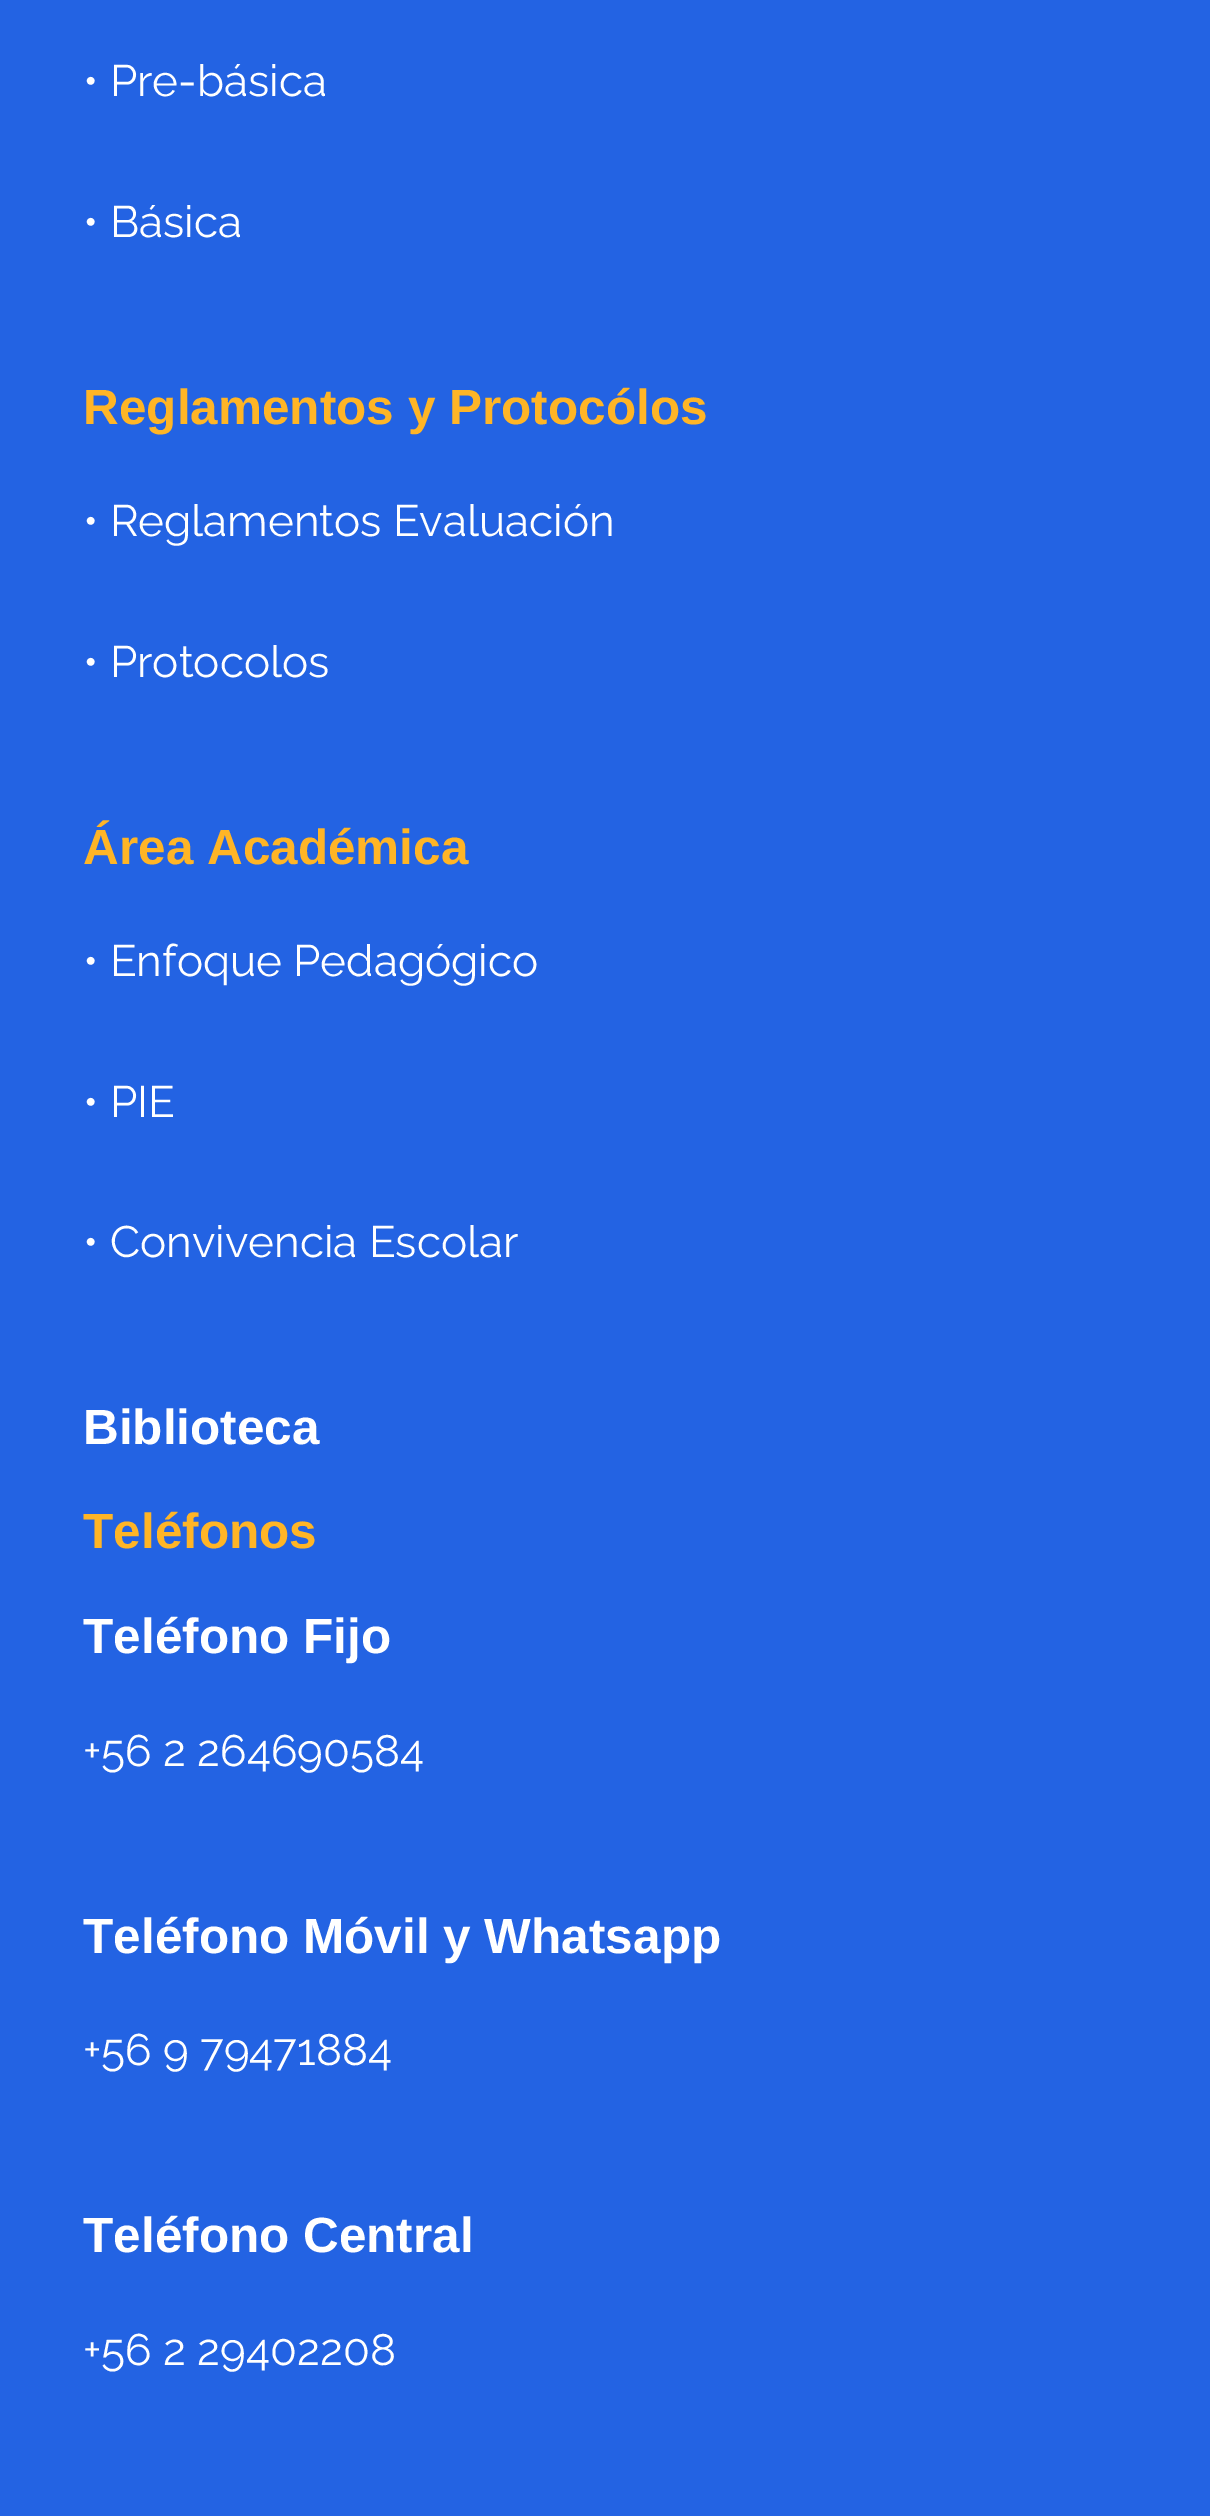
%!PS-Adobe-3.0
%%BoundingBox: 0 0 1210 2516
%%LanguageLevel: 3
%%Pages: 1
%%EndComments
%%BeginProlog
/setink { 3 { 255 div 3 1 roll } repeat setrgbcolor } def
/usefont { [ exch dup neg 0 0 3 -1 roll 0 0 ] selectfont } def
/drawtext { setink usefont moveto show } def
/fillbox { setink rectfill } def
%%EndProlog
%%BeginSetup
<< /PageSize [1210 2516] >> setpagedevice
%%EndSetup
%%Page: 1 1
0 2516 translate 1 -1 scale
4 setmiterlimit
0 0 1210 2516 35 99 227 fillbox
(• Pre-básica) 83 96 /Raleway-Regular 44 255 255 255 drawtext
(• Básica) 83 237 /Raleway-Regular 44 255 255 255 drawtext
(Reglamentos y Protocólos) 83 424 /LiberationSans-Bold 49.5 255 181 38 drawtext
(• Reglamentos Evaluación) 83 536 /Raleway-Regular 44 255 255 255 drawtext
(• Protocolos) 83 677 /Raleway-Regular 44 255 255 255 drawtext
(Área Académica) 83 864 /LiberationSans-Bold 49.5 255 181 38 drawtext
(• Enfoque Pedagógico) 83 976 /Raleway-Regular 44 255 255 255 drawtext
(• PIE) 83 1117 /Raleway-Regular 44 255 255 255 drawtext
(• Convivencia Escolar) 83 1257 /Raleway-Regular 44 255 255 255 drawtext
(Biblioteca) 83 1444 /LiberationSans-Bold 49.5 255 255 255 drawtext
(Teléfonos) 83 1548 /LiberationSans-Bold 49.5 255 181 38 drawtext
(Teléfono Fijo) 83 1653 /LiberationSans-Bold 49.5 255 255 255 drawtext
(+56 2 264690584) 83 1766 /Raleway-Regular 44 255 255 255 drawtext
(Teléfono Móvil y Whatsapp) 83 1953 /LiberationSans-Bold 49.5 255 255 255 drawtext
(+56 9 79471884) 83 2065 /Raleway-Regular 44 255 255 255 drawtext
(Teléfono Central) 83 2252 /LiberationSans-Bold 49.5 255 255 255 drawtext
(+56 2 29402208) 83 2365 /Raleway-Regular 44 255 255 255 drawtext
showpage
%%EOF
